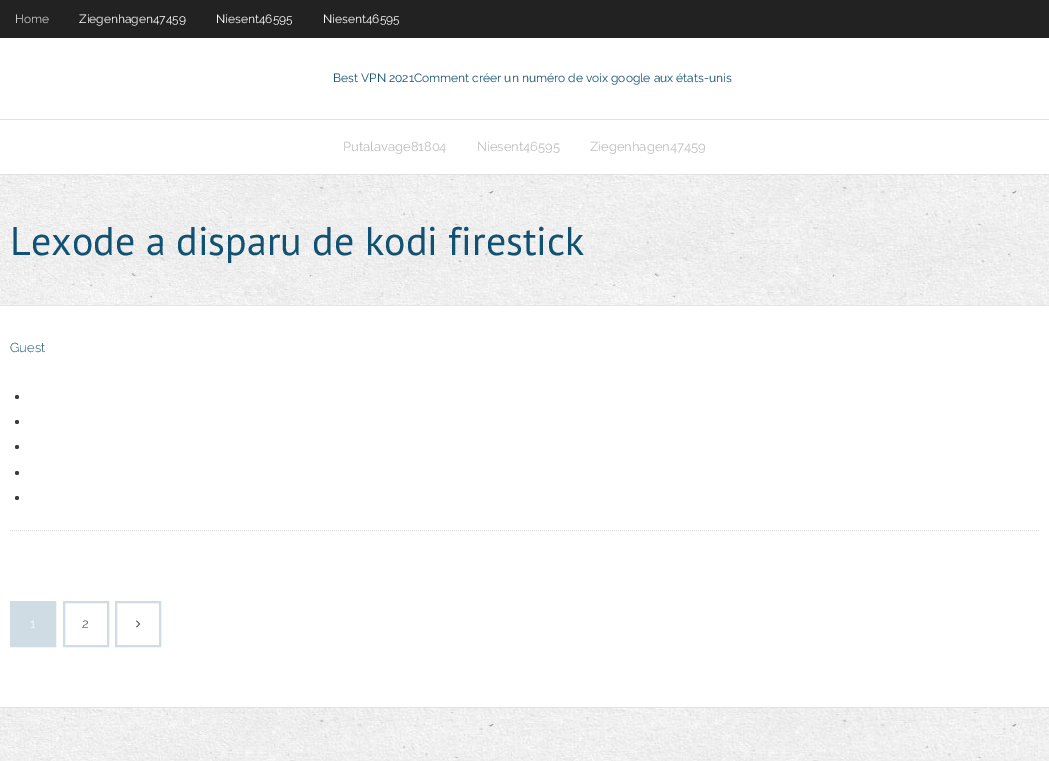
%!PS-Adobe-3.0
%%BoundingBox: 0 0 1049 761
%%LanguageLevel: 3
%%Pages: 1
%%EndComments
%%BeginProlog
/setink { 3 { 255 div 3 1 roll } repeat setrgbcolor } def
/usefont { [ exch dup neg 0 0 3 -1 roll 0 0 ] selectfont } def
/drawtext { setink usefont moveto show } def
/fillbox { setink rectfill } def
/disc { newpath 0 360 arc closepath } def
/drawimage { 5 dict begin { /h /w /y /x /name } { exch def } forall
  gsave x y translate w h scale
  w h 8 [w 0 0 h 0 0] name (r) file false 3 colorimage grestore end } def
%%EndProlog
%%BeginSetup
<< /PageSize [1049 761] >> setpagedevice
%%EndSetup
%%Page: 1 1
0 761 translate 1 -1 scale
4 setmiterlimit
0 0 1049 761 255 255 255 fillbox
0 0 1049 38 34 34 34 fillbox
(Home) 15 23 /Raleway-Regular 12 204 204 204 drawtext
(Ziegenhagen47459) 79 23 /Raleway-Regular 12 255 255 255 drawtext
(Niesent46595) 216 23 /Raleway-Regular 12 255 255 255 drawtext
(Niesent46595) 323 23 /Raleway-Regular 12 255 255 255 drawtext
(Best VPN 2021Comment créer un numéro de voix google aux états-unis) 333 82 /Raleway-Regular 12 17 81 114 drawtext
0 119 1049 1 225 225 225 fillbox
0 174 1049 1 225 225 225 fillbox
(Putalavage81804) 343 151 /Raleway-Regular 13 190 190 190 drawtext
(Niesent46595) 477 151 /Raleway-Regular 13 190 190 190 drawtext
(Ziegenhagen47459) 590 151 /Raleway-Regular 13 190 190 190 drawtext
(assets/img1.rgb) 0 175 1049 130 drawimage
0 305 1049 1 229 229 229 fillbox
(Lexode a disparu de kodi firestick) 10 255 /PTSans-Regular 40 17 81 114 drawtext
221 221 221 setink
[1 1] 0 setdash
10 530.5 moveto 1039 530.5 lineto stroke
(Guest) 10 352 /Raleway-Light 13 17 81 114 drawtext
61 61 61 setink
17 397 2 disc fill
17 422 2 disc fill
17 447 2 disc fill
17 473 2 disc fill
17 498 2 disc fill
207 220 227 setink
2 setlinewidth
[] 0 setdash
11 602 44 44 rectstroke
12 603 42 42 207 220 227 fillbox
(1) 30 628 /Raleway-Light 13 255 255 255 drawtext
207 220 227 setink
64 602 44 44 rectstroke
(2) 82 628 /Raleway-Light 13 61 61 61 drawtext
207 220 227 setink
116 602 44 44 rectstroke
(assets/img2.rgb) 136 620 5 8 drawimage
(assets/img3.rgb) 0 708 1049 53 drawimage
0 707 1049 1 225 225 225 fillbox
showpage
%%EOF
